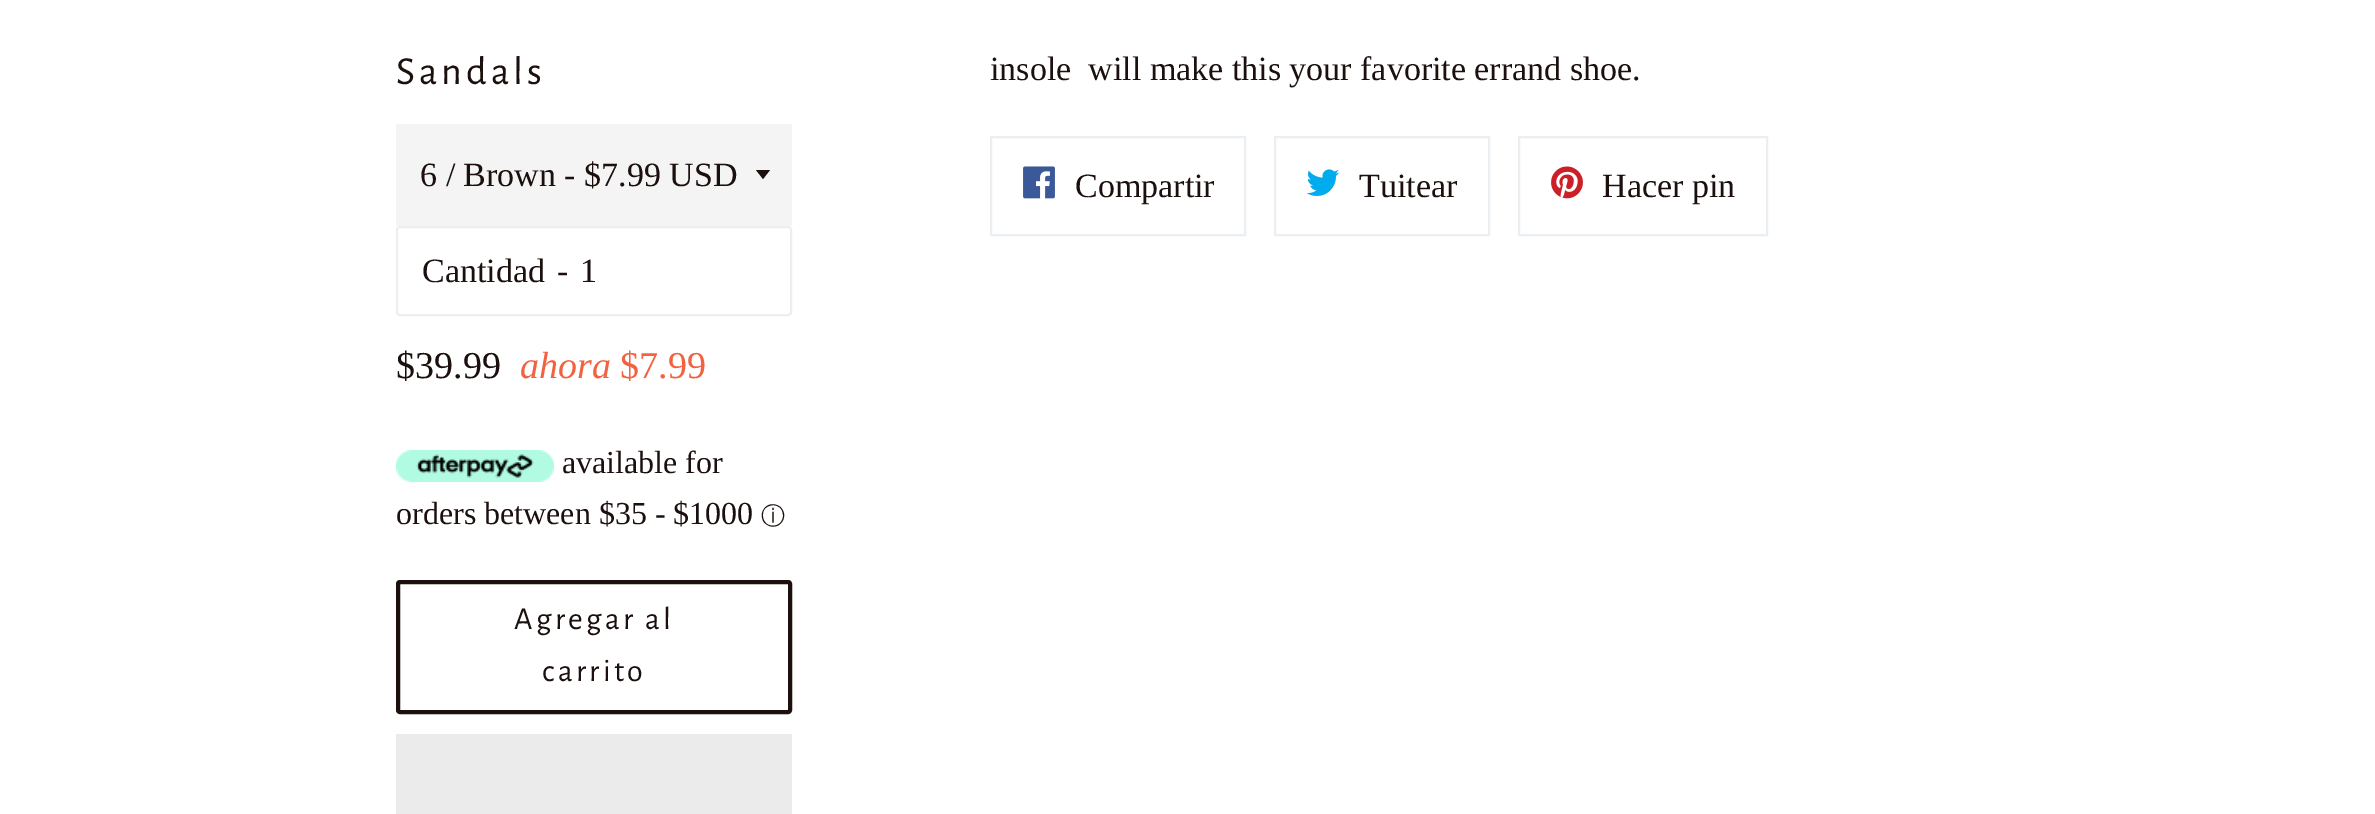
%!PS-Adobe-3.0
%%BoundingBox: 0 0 2375 814
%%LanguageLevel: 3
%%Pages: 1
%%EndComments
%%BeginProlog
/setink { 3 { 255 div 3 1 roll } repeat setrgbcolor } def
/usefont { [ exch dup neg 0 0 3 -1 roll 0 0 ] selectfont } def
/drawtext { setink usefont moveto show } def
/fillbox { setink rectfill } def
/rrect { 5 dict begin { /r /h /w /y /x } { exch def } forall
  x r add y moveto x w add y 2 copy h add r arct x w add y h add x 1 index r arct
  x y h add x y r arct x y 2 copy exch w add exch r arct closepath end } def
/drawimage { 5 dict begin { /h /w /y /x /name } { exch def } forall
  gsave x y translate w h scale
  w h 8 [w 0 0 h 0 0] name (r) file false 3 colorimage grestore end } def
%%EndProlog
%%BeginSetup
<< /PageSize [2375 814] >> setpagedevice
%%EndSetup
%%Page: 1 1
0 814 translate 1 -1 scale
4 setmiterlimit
0 0 2375 814 255 255 255 fillbox
/AlegreyaSans-Regular 40 usefont
27 16 14 setink
396 84 moveto 4 0 (Sandals) ashow
396 124 396 102 244 244 244 fillbox
27 16 14 setink
756 170 moveto 763 179 lineto 770 170 lineto closepath fill
(6 / Brown - $7.99 USD) 420 186 /LiberationSerif-Regular 34 27 16 14 drawtext
236 239 241 setink
2 setlinewidth
397 227 394 88 3 rrect stroke
(Cantidad) 422 282 /LiberationSerif-Regular 34 27 16 14 drawtext
(-) 557 282 /LiberationSerif-Regular 34 27 16 14 drawtext
(1) 580 282 /LiberationSerif-Regular 34 27 16 14 drawtext
($39.99) 396 378 /LiberationSerif-Regular 38 27 16 14 drawtext
(ahora) 520 378 /LiberationSerif-Italic 38 242 98 65 drawtext
($7.99) 620 378 /LiberationSerif-Regular 38 242 98 65 drawtext
(assets/img1.rgb) 396 450 158 32 drawimage
(available for) 562 473 /LiberationSerif-Regular 32 27 16 14 drawtext
(orders between $35 - $1000) 396 524 /LiberationSerif-Regular 32 27 16 14 drawtext
(ⓘ) 761 524 /WenQuanYiZenHei-Medium 24 27 16 14 drawtext
4 setlinewidth
398 582 392 130 2 rrect stroke
/AlegreyaSans-Regular 32 usefont
514 629 moveto 3.25 0 (Agregar al) ashow
542 681 moveto 3.25 0 (carrito) ashow
396 734 396 80 235 235 235 fillbox
(insole  will make this your favorite errand shoe.) 990 80 /LiberationSerif-Regular 34 27 16 14 drawtext
236 239 241 setink
2 setlinewidth
991 137 254 98 rectstroke
(assets/img2.rgb) 1023 166 32 33 drawimage
(Compartir) 1075 197 /LiberationSerif-Regular 34 27 16 14 drawtext
236 239 241 setink
1275 137 214 98 rectstroke
(assets/img3.rgb) 1306 169 34 27 drawimage
(Tuitear) 1359 197 /LiberationSerif-Regular 34 27 16 14 drawtext
236 239 241 setink
1519 137 248 98 rectstroke
(assets/img4.rgb) 1551 166 32 33 drawimage
(Hacer pin) 1602 197 /LiberationSerif-Regular 34 27 16 14 drawtext
showpage
%%EOF
